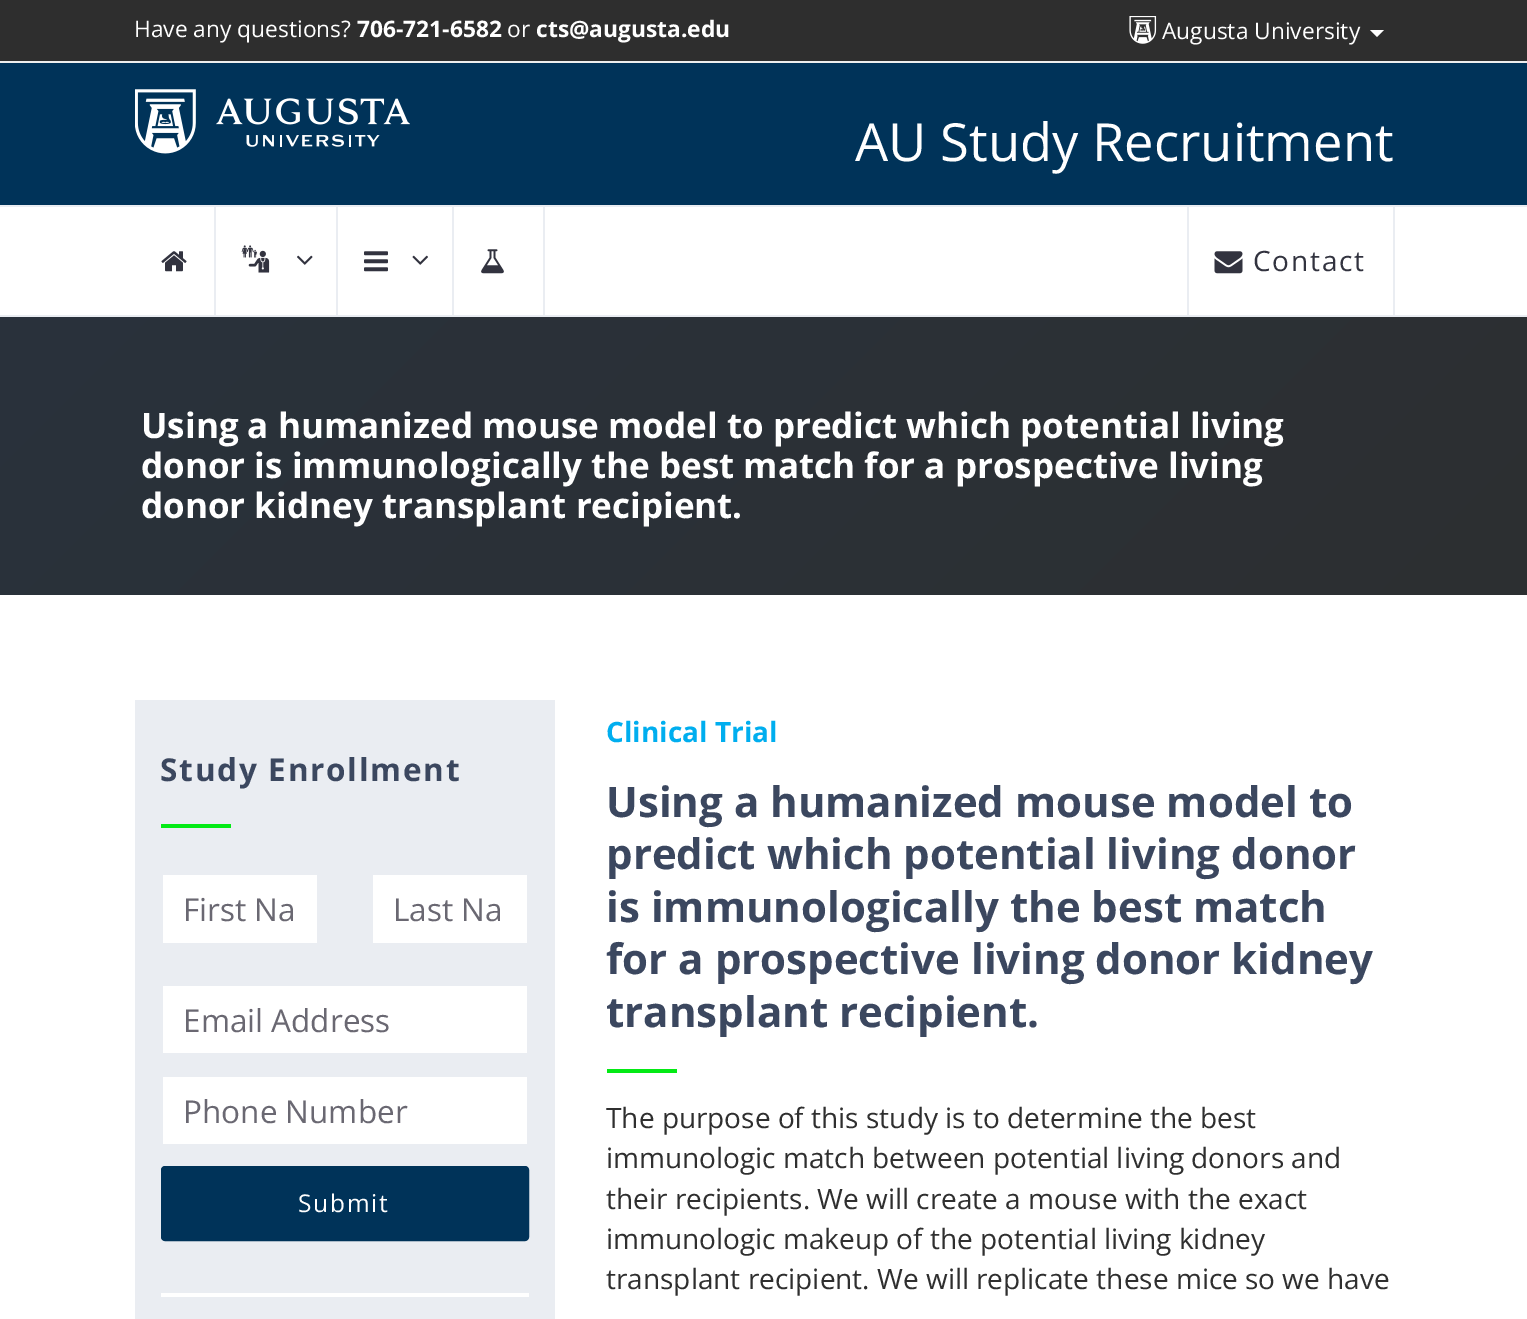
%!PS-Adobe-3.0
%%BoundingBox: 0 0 1527 1319
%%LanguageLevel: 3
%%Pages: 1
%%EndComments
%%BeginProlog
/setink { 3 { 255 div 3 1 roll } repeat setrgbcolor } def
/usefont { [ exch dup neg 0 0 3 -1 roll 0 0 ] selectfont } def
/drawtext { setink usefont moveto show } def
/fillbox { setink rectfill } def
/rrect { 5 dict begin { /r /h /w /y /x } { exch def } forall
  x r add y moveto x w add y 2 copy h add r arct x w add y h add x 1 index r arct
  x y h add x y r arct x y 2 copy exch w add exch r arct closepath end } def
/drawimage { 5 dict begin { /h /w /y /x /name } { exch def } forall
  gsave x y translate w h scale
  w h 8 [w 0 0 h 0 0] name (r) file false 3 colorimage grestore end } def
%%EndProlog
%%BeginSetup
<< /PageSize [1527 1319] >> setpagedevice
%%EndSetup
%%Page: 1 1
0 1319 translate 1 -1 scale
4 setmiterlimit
0 0 1527 1319 255 255 255 fillbox
0 63 1527 142 0 51 89 fillbox
0 0 1527 61 46 46 46 fillbox
0 61 1527 2 238 238 238 fillbox
(Have any questions?) 134 37 /OpenSans-Regular 22.75 255 255 255 drawtext
(706-721-6582) 357 37 /OpenSans-Bold 22.75 255 255 255 drawtext
(or) 507 37 /OpenSans-Regular 22.75 255 255 255 drawtext
(cts@augusta.edu) 536 37 /OpenSans-Bold 22.75 255 255 255 drawtext
(assets/img1.rgb) 1129 16 28 28 drawimage
(Augusta University) 1162 39 /OpenSans-Regular 22.75 255 255 255 drawtext
1370 30 moveto 1384 30 lineto 1377 37 lineto closepath fill
(assets/img2.rgb) 135 89 275 65 drawimage
(AU Study Recruitment) 855 161 /OpenSans-Regular 52.5 255 255 255 drawtext
0 205 1527 2 234 237 242 fillbox
0 315 1527 2 234 237 242 fillbox
(assets/img3.rgb) 161 251 26 21 drawimage
214 207 2 108 234 237 242 fillbox
(assets/img4.rgb) 241 245 29 28 drawimage
(assets/img5.rgb) 297 255 16 10 drawimage
336 207 2 108 234 237 242 fillbox
(assets/img6.rgb) 364 251 24 21 drawimage
(assets/img7.rgb) 412 255 16 10 drawimage
452 207 2 108 234 237 242 fillbox
(assets/img8.rgb) 481 249 23 25 drawimage
543 207 2 108 234 237 242 fillbox
1187 207 2 108 234 237 242 fillbox
(assets/img9.rgb) 1214 251 29 23 drawimage
/OpenSans-Regular 28 usefont
50 51 63 setink
1253 271 moveto 1.75 0 (Contact) ashow
1393 207 2 108 234 237 242 fillbox
gsave 0 317 moveto 1527 317 lineto 1527 595 lineto 0 595 lineto closepath clip newpath
<< /ShadingType 2 /ColorSpace /DeviceRGB /Coords [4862 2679 1250 -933] /Extend [true true] /Function << /FunctionType 3 /Domain [0 1] /Functions [<< /FunctionType 2 /Domain [0 1] /C0 [0.918 0.929 0.949] /C1 [0.282 0.333 0.388] /N 1 >> << /FunctionType 2 /Domain [0 1] /C0 [0.282 0.333 0.388] /C1 [0.18 0.18 0.18] /N 1 >> << /FunctionType 2 /Domain [0 1] /C0 [0.18 0.18 0.18] /C1 [0.161 0.196 0.235] /N 1 >>] /Bounds [0.33 0.67] /Encode [0 1 0 1 0 1] >> >> shfill grestore
(Using a humanized mouse model to predict which potential living) 141 438 /OpenSans-Bold 35 255 255 255 drawtext
(donor is immunologically the best match for a prospective living) 141 478 /OpenSans-Bold 35 255 255 255 drawtext
(donor kidney transplant recipient.) 141 518 /OpenSans-Bold 35 255 255 255 drawtext
135 700 420 619 234 237 242 fillbox
/OpenSans-Bold 31.5 usefont
59 71 95 setink
160 781 moveto 1.75 0 (Study Enrollment) ashow
161 824 70 4 4 234 21 fillbox
163 875 154 68 255 255 255 fillbox
(First Na) 183 921 /OpenSans-Regular 31.5 106 104 114 drawtext
373 875 154 68 255 255 255 fillbox
(Last Na) 393 921 /OpenSans-Regular 31.5 106 104 114 drawtext
163 986 364 67 255 255 255 fillbox
(Email Address) 183 1032 /OpenSans-Regular 31.5 106 104 114 drawtext
163 1077 364 67 255 255 255 fillbox
(Phone Number) 183 1123 /OpenSans-Regular 31.5 106 104 114 drawtext
0 51 89 setink
162 1167 366 73 3 rrect gsave fill grestore
2 setlinewidth
stroke
/OpenSans-Regular 24.5 usefont
255 255 255 setink
298 1212 moveto 1.75 0 (Submit) ashow
161 1293 368 4 255 255 255 fillbox
(Clinical Trial) 606 742 /OpenSans-Bold 28 0 174 239 drawtext
(Using a humanized mouse model to) 606 817 /OpenSans-Bold 42 59 71 95 drawtext
(predict which potential living donor) 606 869 /OpenSans-Bold 42 59 71 95 drawtext
(is immunologically the best match) 606 922 /OpenSans-Bold 42 59 71 95 drawtext
(for a prospective living donor kidney) 606 974 /OpenSans-Bold 42 59 71 95 drawtext
(transplant recipient.) 606 1027 /OpenSans-Bold 42 59 71 95 drawtext
607 1069 70 4 4 234 21 fillbox
(The purpose of this study is to determine the best) 606 1128 /OpenSans-Regular 28 47 47 47 drawtext
(immunologic match between potential living donors and) 606 1168 /OpenSans-Regular 28 47 47 47 drawtext
(their recipients. We will create a mouse with the exact) 606 1209 /OpenSans-Regular 28 47 47 47 drawtext
(immunologic makeup of the potential living kidney) 606 1249 /OpenSans-Regular 28 47 47 47 drawtext
(transplant recipient. We will replicate these mice so we have) 606 1289 /OpenSans-Regular 28 47 47 47 drawtext
showpage
%%EOF
